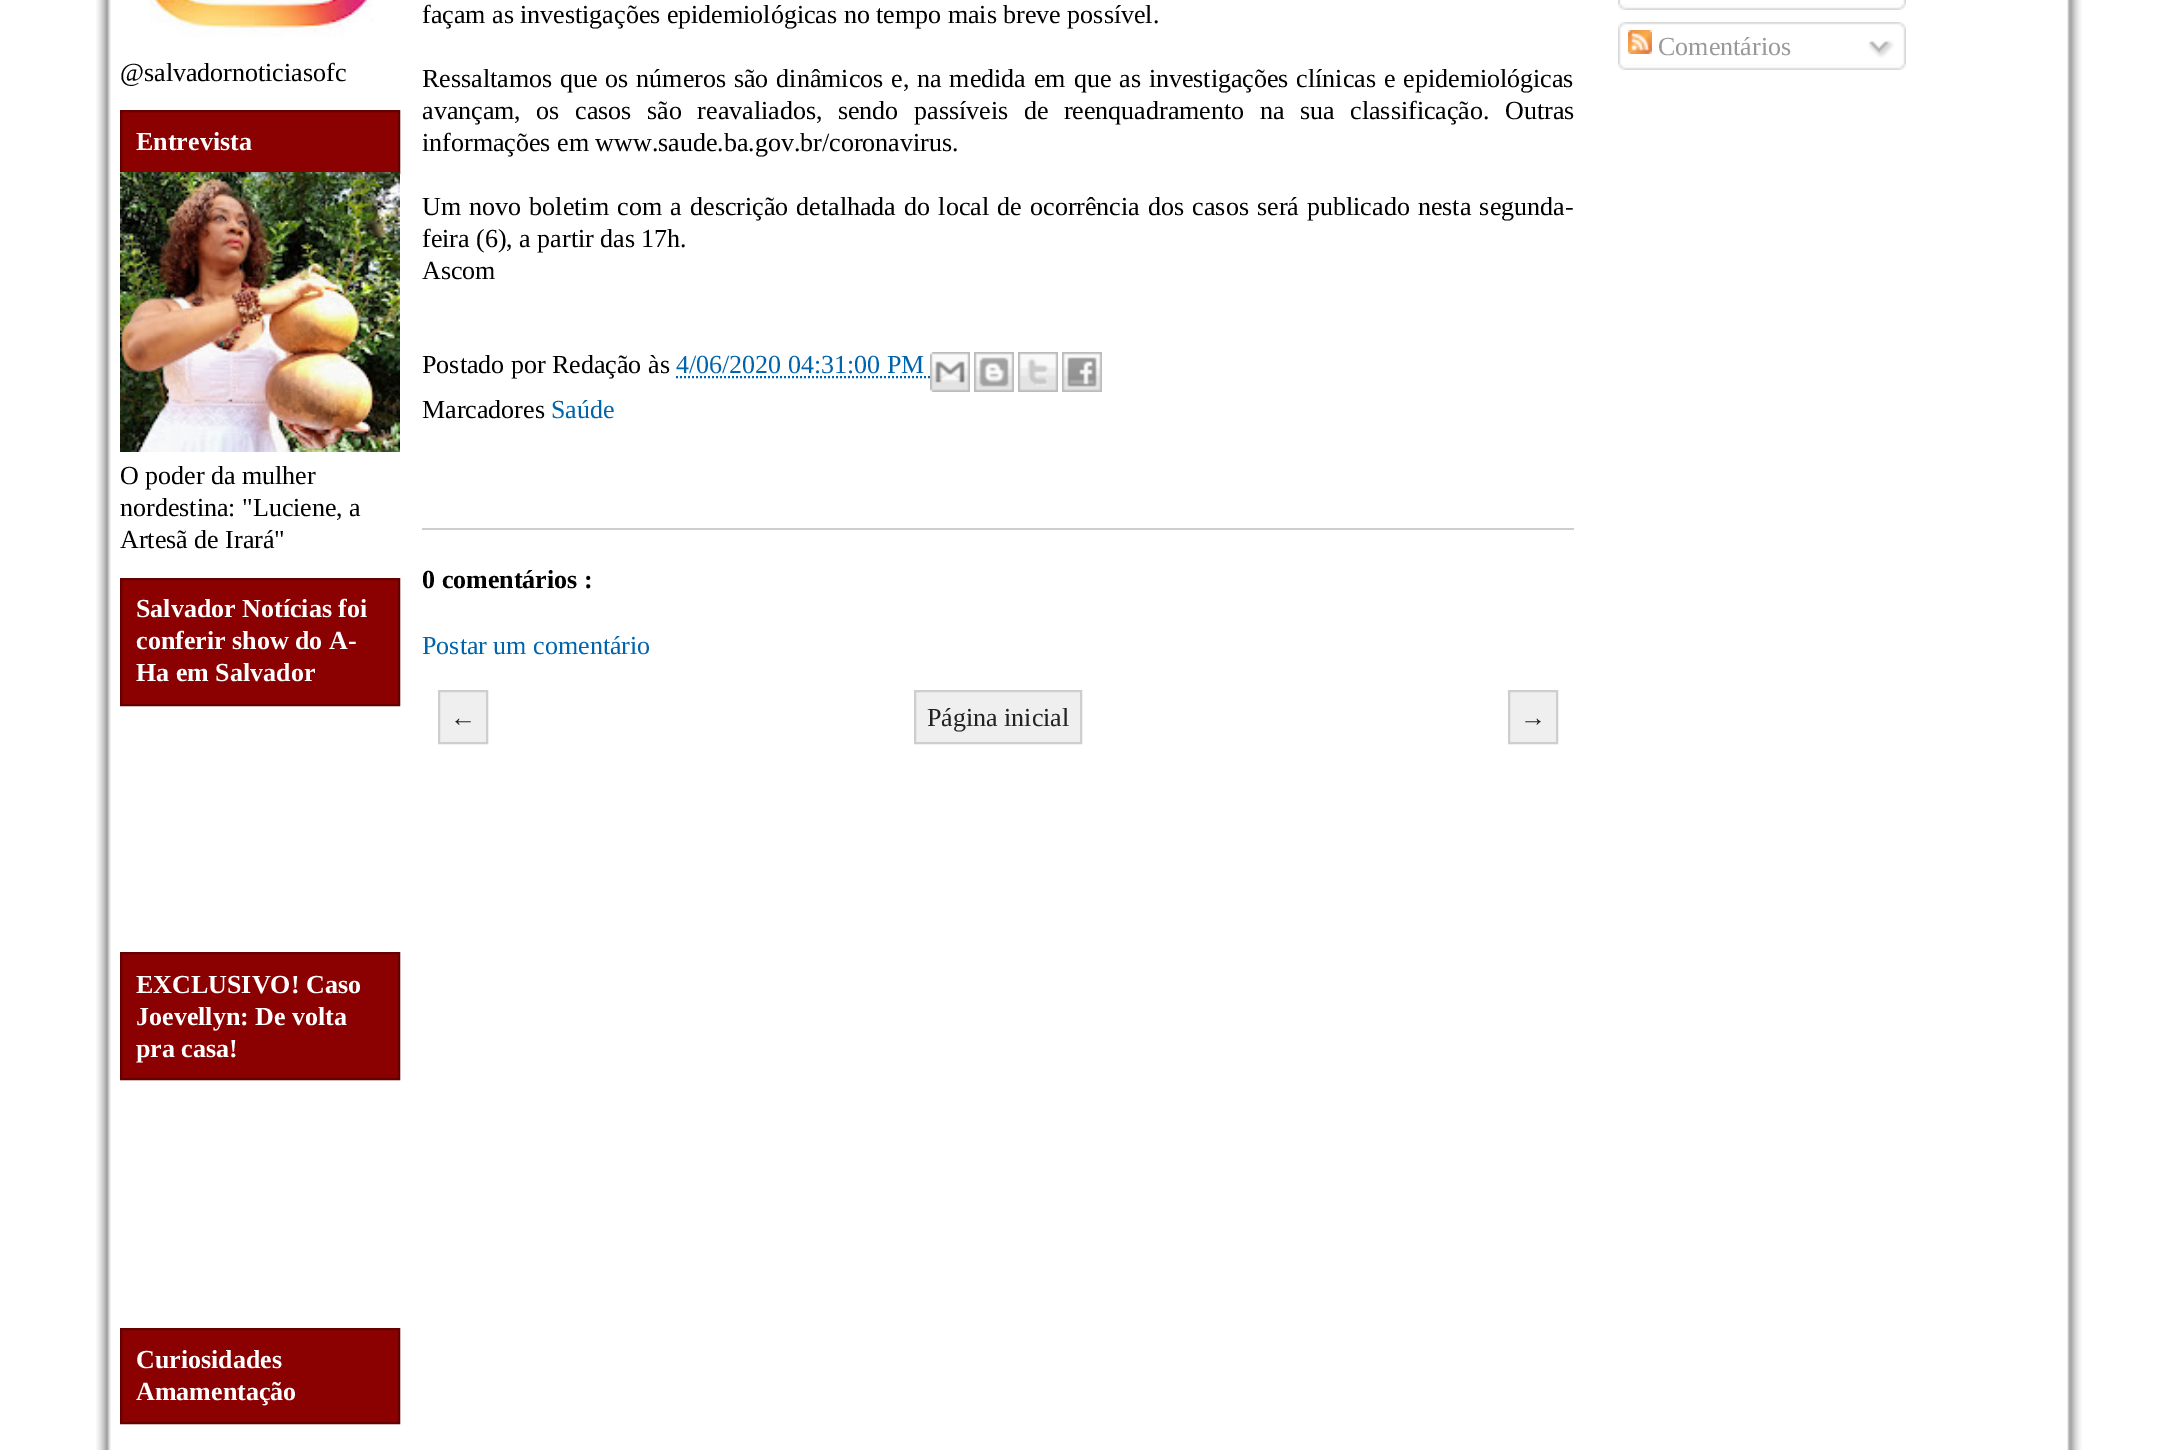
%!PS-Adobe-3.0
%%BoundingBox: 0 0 2175 1450
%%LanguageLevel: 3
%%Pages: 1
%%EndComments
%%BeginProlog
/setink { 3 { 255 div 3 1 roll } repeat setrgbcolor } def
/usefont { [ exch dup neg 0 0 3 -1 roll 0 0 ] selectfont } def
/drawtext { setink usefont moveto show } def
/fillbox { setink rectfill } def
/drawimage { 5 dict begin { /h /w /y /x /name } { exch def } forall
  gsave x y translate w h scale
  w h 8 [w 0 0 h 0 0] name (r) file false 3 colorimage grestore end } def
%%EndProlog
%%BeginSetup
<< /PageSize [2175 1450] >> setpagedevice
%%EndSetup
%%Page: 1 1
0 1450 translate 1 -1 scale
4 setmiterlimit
0 0 2175 1450 255 255 255 fillbox
(assets/img1.rgb) 96 0 1986 1450 drawimage
(assets/img2.rgb) 150 0 224 37 drawimage
(@salvadornoticiasofc) 120 81 /LiberationSerif-Regular 26 0 0 0 drawtext
139 0 0 setink
121 111 moveto 399 111 lineto 399 173 lineto 121 173 lineto closepath gsave fill grestore
99 0 0 setink
2 setlinewidth
stroke
(Entrevista) 136 150 /LiberationSerif-Bold 26 255 255 255 drawtext
(assets/img3.rgb) 120 172 280 280 drawimage
(O poder da mulher) 120 484 /LiberationSerif-Regular 26 0 0 0 drawtext
(nordestina: "Luciene, a) 120 516 /LiberationSerif-Regular 26 0 0 0 drawtext
(Artesã de Irará") 120 548 /LiberationSerif-Regular 26 0 0 0 drawtext
139 0 0 setink
121 579 moveto 399 579 lineto 399 705 lineto 121 705 lineto closepath gsave fill grestore
99 0 0 setink
stroke
(Salvador Notícias foi) 136 617 /LiberationSerif-Bold 26 255 255 255 drawtext
(conferir show do A-) 136 649 /LiberationSerif-Bold 26 255 255 255 drawtext
(Ha em Salvador) 136 681 /LiberationSerif-Bold 26 255 255 255 drawtext
139 0 0 setink
121 953 moveto 399 953 lineto 399 1079 lineto 121 1079 lineto closepath gsave fill grestore
99 0 0 setink
stroke
(EXCLUSIVO! Caso) 136 993 /LiberationSerif-Bold 26 255 255 255 drawtext
(Joevellyn: De volta) 136 1025 /LiberationSerif-Bold 26 255 255 255 drawtext
(pra casa!) 136 1057 /LiberationSerif-Bold 26 255 255 255 drawtext
139 0 0 setink
121 1329 moveto 399 1329 lineto 399 1423 lineto 121 1423 lineto closepath gsave fill grestore
99 0 0 setink
stroke
(Curiosidades) 136 1368 /LiberationSerif-Bold 26 255 255 255 drawtext
(Amamentação) 136 1400 /LiberationSerif-Bold 26 255 255 255 drawtext
422 528 1152 2 206 206 206 fillbox
(façam as investigações epidemiológicas no tempo mais breve possível.) 422 23 /LiberationSerif-Regular 26 0 0 0 drawtext
422 87 moveto 1.4 0 32 (Ressaltamos que os números são dinâmicos e, na medida em que as investigações clínicas e epidemiológicas) widthshow
422 119 moveto 9.1 0 32 (avançam, os casos são reavaliados, sendo passíveis de reenquadramento na sua classificação. Outras) widthshow
(informações em www.saude.ba.gov.br/coronavirus.) 422 151 /LiberationSerif-Regular 26 0 0 0 drawtext
422 215 moveto 1.75 0 32 (Um novo boletim com a descrição detalhada do local de ocorrência dos casos será publicado nesta segunda-) widthshow
(feira \(6\), a partir das 17h.) 422 247 /LiberationSerif-Regular 26 0 0 0 drawtext
(Ascom) 422 279 /LiberationSerif-Regular 26 0 0 0 drawtext
(Postado por Redação às) 422 373 /LiberationSerif-Regular 26 0 0 0 drawtext
(4/06/2020 04:31:00 PM) 676 373 /LiberationSerif-Regular 26 0 100 173 drawtext
[2 2] 0 setdash
676 377 moveto 931 377 lineto stroke
(assets/img4.rgb) 930 352 40 40 drawimage
(assets/img5.rgb) 974 352 40 40 drawimage
(assets/img6.rgb) 1018 352 40 40 drawimage
(assets/img7.rgb) 1062 352 40 40 drawimage
(Marcadores) 422 418 /LiberationSerif-Regular 26 0 0 0 drawtext
(Saúde) 551 418 /LiberationSerif-Regular 26 0 100 173 drawtext
(0 comentários :) 422 588 /LiberationSerif-Bold 26 0 0 0 drawtext
(Postar um comentário) 422 654 /LiberationSerif-Regular 26 0 100 173 drawtext
239 239 239 setink
439 691 moveto 487 691 lineto 487 743 lineto 439 743 lineto closepath gsave fill grestore
206 206 206 setink
[] 0 setdash
stroke
(←) 450 726 /LiberationSerif-Regular 26 34 34 34 drawtext
239 239 239 setink
915 691 moveto 1081 691 lineto 1081 743 lineto 915 743 lineto closepath gsave fill grestore
206 206 206 setink
stroke
(Página inicial) 927 726 /LiberationSerif-Regular 26 34 34 34 drawtext
239 239 239 setink
1509 691 moveto 1557 691 lineto 1557 743 lineto 1509 743 lineto closepath gsave fill grestore
206 206 206 setink
stroke
(→) 1520 726 /LiberationSerif-Regular 26 34 34 34 drawtext
(assets/img8.rgb) 1618 0 288 4 drawimage
(assets/img9.rgb) 1618 4 288 6 drawimage
(assets/img10.rgb) 1618 22 288 42 drawimage
(assets/img11.rgb) 1628 30 24 24 drawimage
(Comentários) 1658 55 /LiberationSerif-Regular 26 153 153 153 drawtext
(assets/img12.rgb) 1868 40 26 18 drawimage
(assets/img9.rgb) 1618 64 288 6 drawimage
showpage
%%EOF
